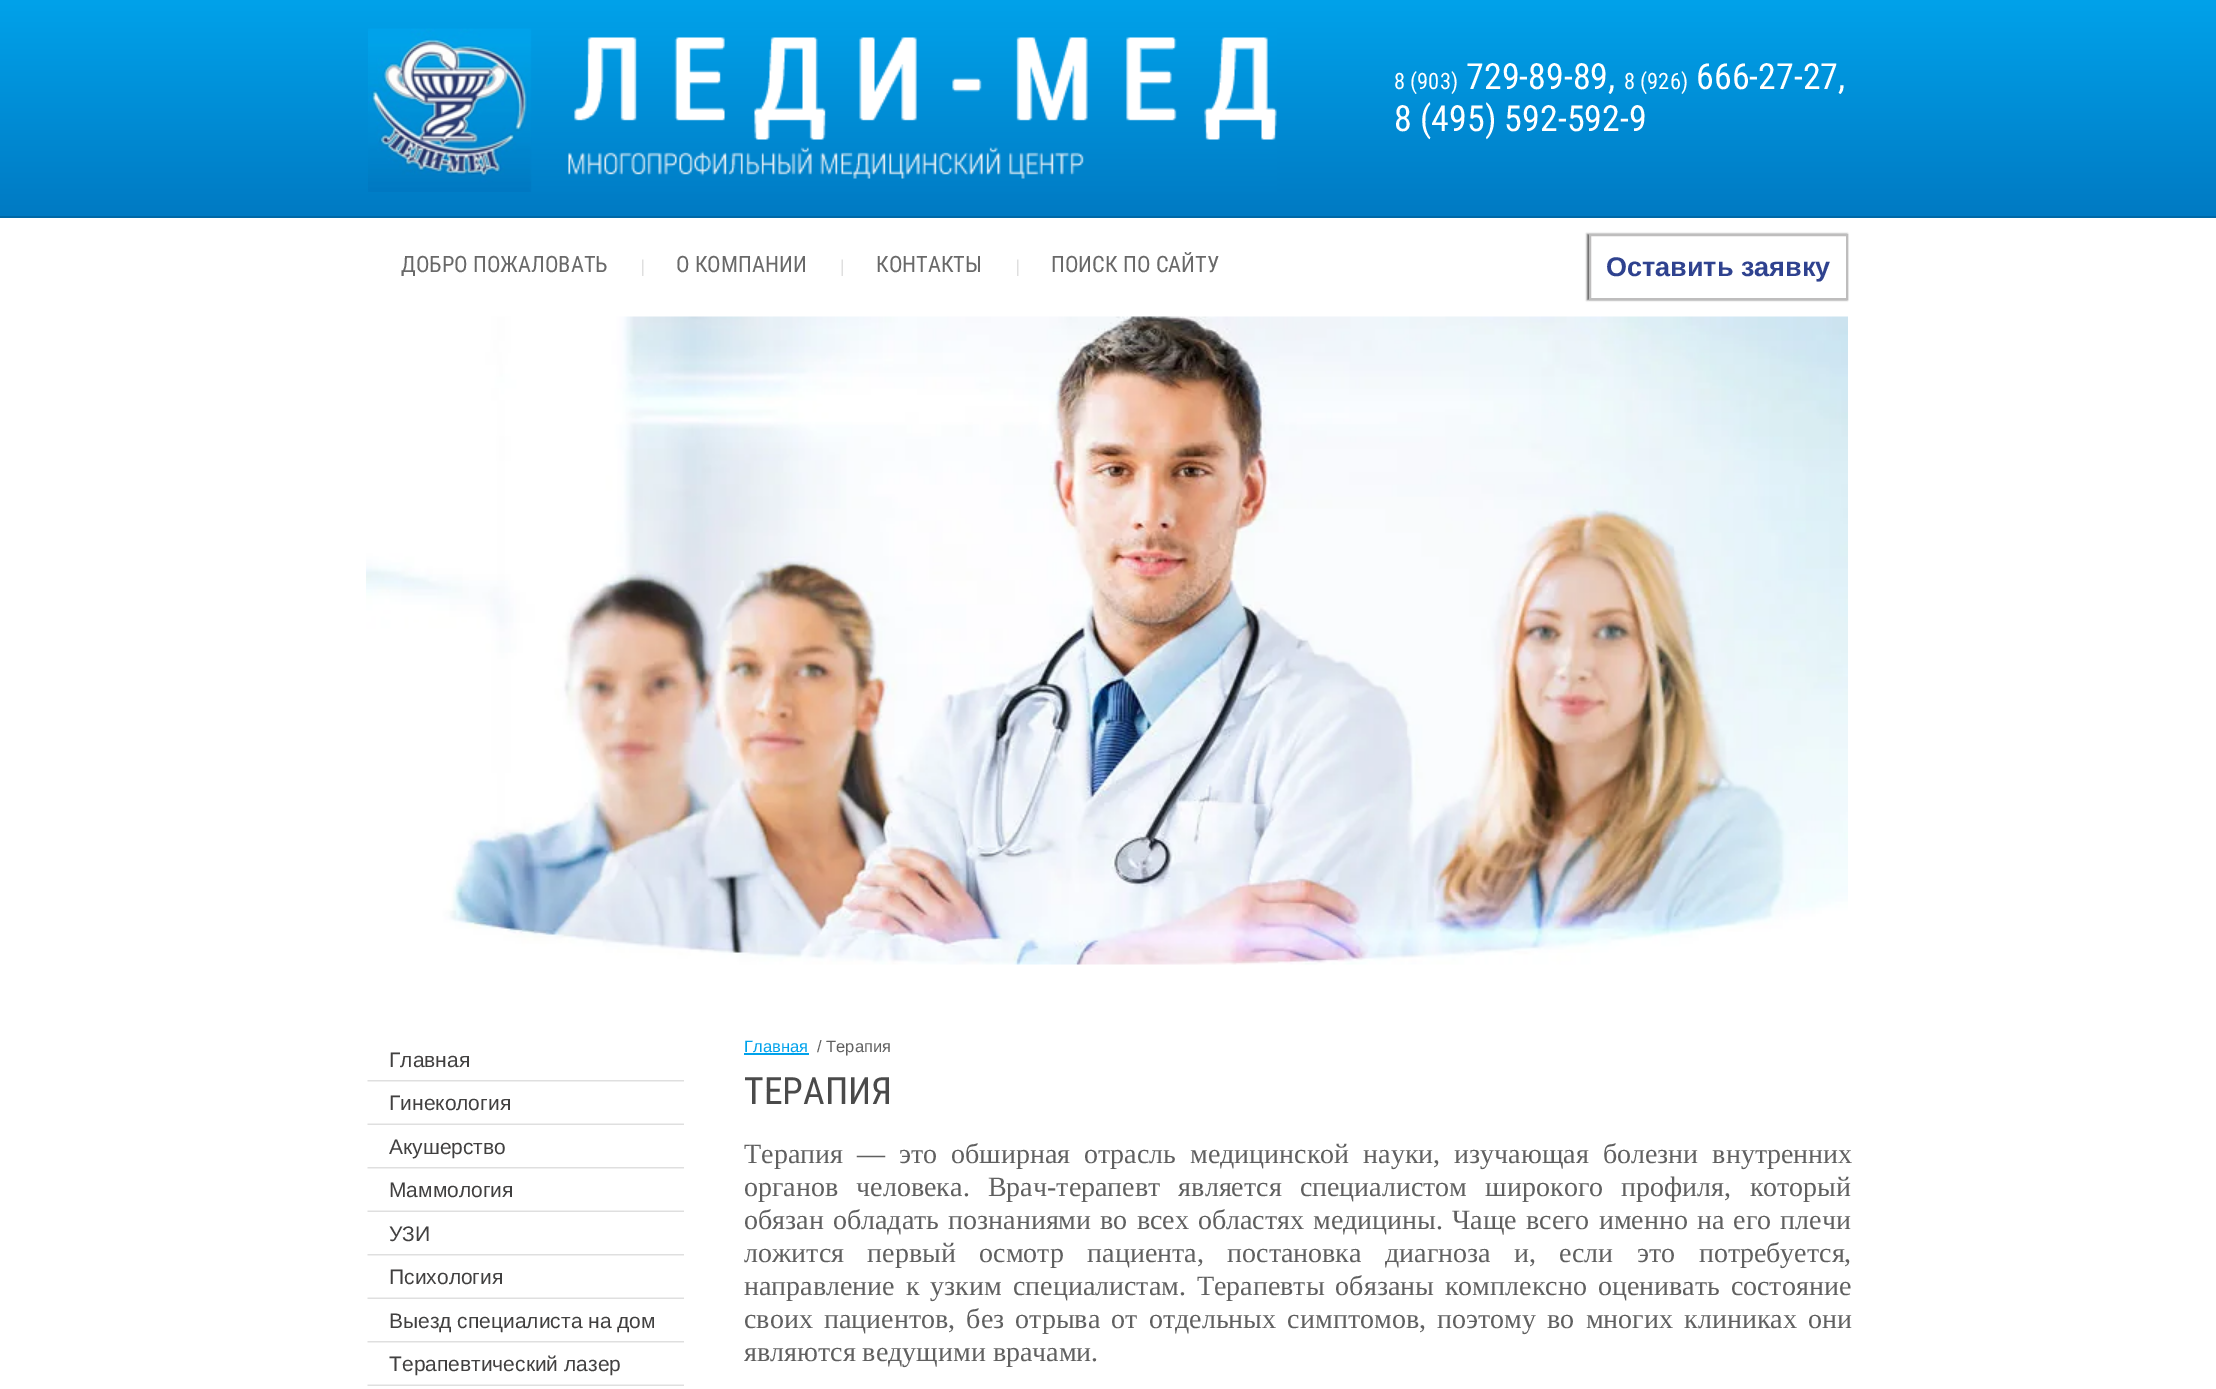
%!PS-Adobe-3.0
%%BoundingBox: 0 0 2216 1389
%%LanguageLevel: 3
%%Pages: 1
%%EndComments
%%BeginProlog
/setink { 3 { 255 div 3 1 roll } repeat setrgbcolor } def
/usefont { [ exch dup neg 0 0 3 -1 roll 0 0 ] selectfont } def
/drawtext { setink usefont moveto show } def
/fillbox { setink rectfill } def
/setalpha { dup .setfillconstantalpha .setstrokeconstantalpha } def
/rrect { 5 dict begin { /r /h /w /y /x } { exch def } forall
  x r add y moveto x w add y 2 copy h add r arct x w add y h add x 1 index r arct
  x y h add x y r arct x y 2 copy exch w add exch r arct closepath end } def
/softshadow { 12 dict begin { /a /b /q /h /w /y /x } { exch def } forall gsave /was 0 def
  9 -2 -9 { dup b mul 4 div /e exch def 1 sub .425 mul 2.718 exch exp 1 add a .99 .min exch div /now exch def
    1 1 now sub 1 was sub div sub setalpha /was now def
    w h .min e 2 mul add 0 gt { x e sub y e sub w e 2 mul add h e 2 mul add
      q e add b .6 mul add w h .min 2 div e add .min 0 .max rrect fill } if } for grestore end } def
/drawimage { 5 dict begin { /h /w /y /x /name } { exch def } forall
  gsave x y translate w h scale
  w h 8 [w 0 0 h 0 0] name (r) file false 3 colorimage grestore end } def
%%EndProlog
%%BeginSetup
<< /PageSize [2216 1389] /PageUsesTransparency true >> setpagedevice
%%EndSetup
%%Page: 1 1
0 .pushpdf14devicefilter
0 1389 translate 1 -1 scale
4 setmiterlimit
0 0 2216 1389 255 255 255 fillbox
gsave 0 0 moveto 2216 0 lineto 2216 216 lineto 0 216 lineto closepath clip newpath
<< /ShadingType 2 /ColorSpace /DeviceRGB /Coords [1109 0 1109 216] /Extend [true true] /Function << /FunctionType 2 /Domain [0 1] /C0 [0 0.635 0.918] /C1 [0 0.478 0.765] /N 1 >> >> shfill grestore
0 216 2216 2 0 104 166 fillbox
(assets/img1.rgb) 368 28 909 164 drawimage
(8 \(903\)) 1394 89 /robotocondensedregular-Regular 22.5 255 255 255 drawtext
(729-89-89,) 1466 89 /robotocondensedregular-Regular 36 255 255 255 drawtext
(8 \(926\)) 1624 89 /robotocondensedregular-Regular 22.5 255 255 255 drawtext
(666-27-27,) 1696 89 /robotocondensedregular-Regular 36 255 255 255 drawtext
(8 \(495\) 592-592-9) 1394 131 /robotocondensedregular-Regular 36 255 255 255 drawtext
(ДОБРО ПОЖАЛОВАТЬ) 401 272 /robotocondensedregular-Regular 22.5 105 105 105 drawtext
(assets/img2.rgb) 642 259 2 17 drawimage
(О КОМПАНИИ) 676 272 /robotocondensedregular-Regular 22.5 105 105 105 drawtext
(assets/img3.rgb) 841 259 2 17 drawimage
(КОНТАКТЫ) 876 272 /robotocondensedregular-Regular 22.5 105 105 105 drawtext
(assets/img2.rgb) 1017 259 2 17 drawimage
(ПОИСК ПО САЙТУ) 1051 272 /robotocondensedregular-Regular 22.5 105 105 105 drawtext
gsave
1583 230 moveto 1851 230 lineto 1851 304 lineto 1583 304 lineto closepath 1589 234 moveto 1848 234 lineto 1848 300 lineto 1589 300 lineto closepath eoclip newpath
0 0 0 setink
1587 234 260 66 0 1 0.61 softshadow
grestore
190 189 189 setink
2 setlinewidth
1590 235 257 64 rectstroke
(Оставить заявку) 1606 276 /LiberationSans-Bold 27 47 66 143 drawtext
(assets/img4.rgb) 366 316 1482 649 drawimage
(Главная) 389 1067 /LiberationSans-Regular 21 65 64 64 drawtext
(assets/img5.rgb) 367 1080 317 2 drawimage
(Гинекология) 389 1110 /LiberationSans-Regular 21 65 64 64 drawtext
(assets/img6.rgb) 367 1123 317 2 drawimage
(Акушерство) 389 1154 /LiberationSans-Regular 21 65 64 64 drawtext
(assets/img5.rgb) 367 1167 317 2 drawimage
(Маммология) 389 1197 /LiberationSans-Regular 21 65 64 64 drawtext
(assets/img6.rgb) 367 1210 317 2 drawimage
(УЗИ) 389 1241 /LiberationSans-Regular 21 65 64 64 drawtext
(assets/img5.rgb) 367 1254 317 2 drawimage
(Психология) 389 1284 /LiberationSans-Regular 21 65 64 64 drawtext
(assets/img6.rgb) 367 1297 317 2 drawimage
(Выезд специалиста на дом) 389 1328 /LiberationSans-Regular 21 65 64 64 drawtext
(assets/img5.rgb) 367 1341 317 2 drawimage
(Терапевтический лазер) 389 1371 /LiberationSans-Regular 21 65 64 64 drawtext
(assets/img6.rgb) 367 1384 317 2 drawimage
(Главная) 744 1052 /LiberationSans-Regular 16.5 0 162 235 drawtext
744 1053 65 2 0 162 235 fillbox
(/ Терапия) 817 1052 /LiberationSans-Regular 16.5 96 96 96 drawtext
(ТЕРАПИЯ) 744 1104 /robotocondensedregular-Regular 37.5 74 74 74 drawtext
/LiberationSerif-Regular 28 usefont
96 96 96 setink
744 1163 moveto 7 0 32 (Терапия — это обширная отрасль медицинской науки, изучающая болезни внутренних) widthshow
744 1196 moveto 11.25 0 32 (органов человека. Врач-терапевт является специалистом широкого профиля, который) widthshow
744 1229 moveto 2.1 0 32 (обязан обладать познаниями во всех областях медицины. Чаще всего именно на его плечи) widthshow
744 1262 moveto 16.5 0 32 (ложится первый осмотр пациента, постановка диагноза и, если это потребуется,) widthshow
744 1295 moveto 4 0 32 (направление к узким специалистам. Терапевты обязаны комплексно оценивать состояние) widthshow
744 1328 moveto 4.25 0 32 (своих пациентов, без отрыва от отдельных симптомов, поэтому во многих клиниках они) widthshow
(являются ведущими врачами.) 744 1361 /LiberationSerif-Regular 28 96 96 96 drawtext
.poppdf14devicefilter showpage
%%EOF
